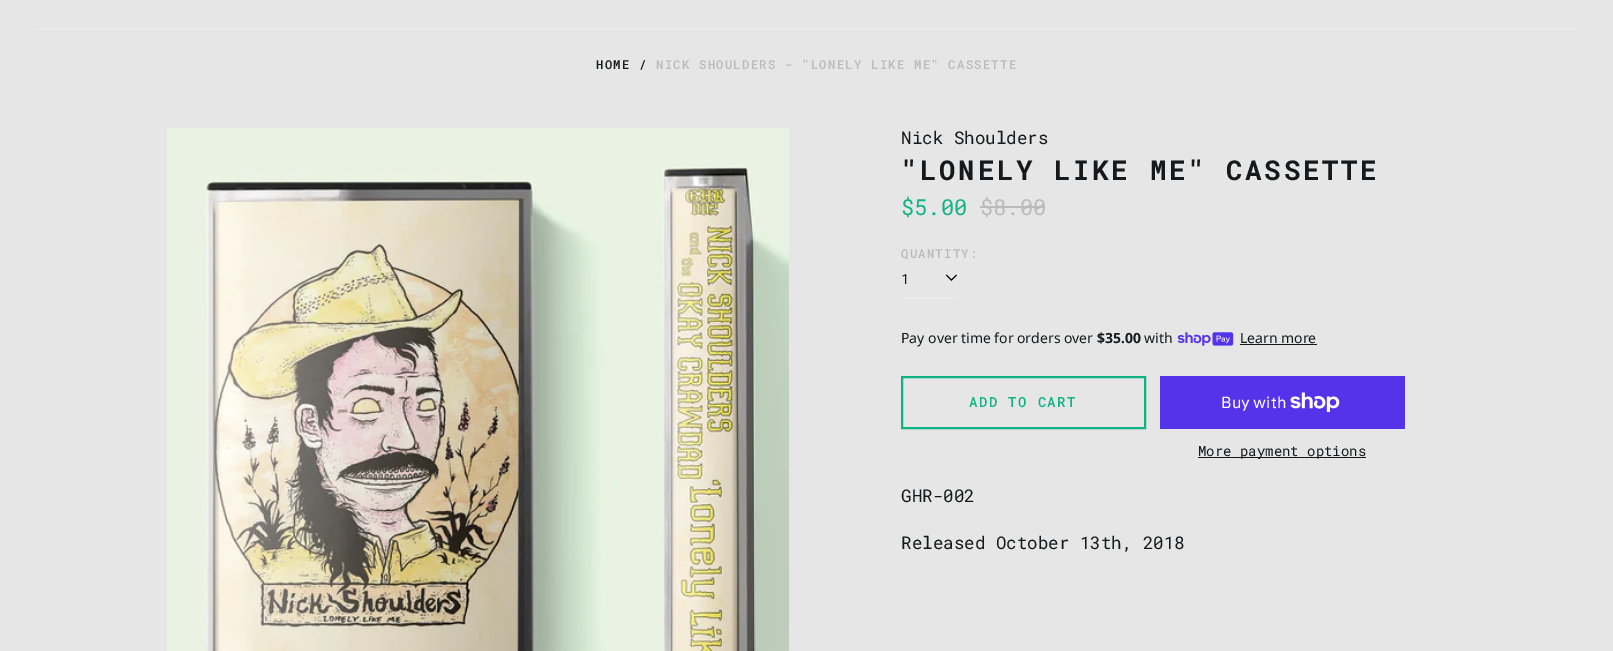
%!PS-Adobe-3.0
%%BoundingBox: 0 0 1613 651
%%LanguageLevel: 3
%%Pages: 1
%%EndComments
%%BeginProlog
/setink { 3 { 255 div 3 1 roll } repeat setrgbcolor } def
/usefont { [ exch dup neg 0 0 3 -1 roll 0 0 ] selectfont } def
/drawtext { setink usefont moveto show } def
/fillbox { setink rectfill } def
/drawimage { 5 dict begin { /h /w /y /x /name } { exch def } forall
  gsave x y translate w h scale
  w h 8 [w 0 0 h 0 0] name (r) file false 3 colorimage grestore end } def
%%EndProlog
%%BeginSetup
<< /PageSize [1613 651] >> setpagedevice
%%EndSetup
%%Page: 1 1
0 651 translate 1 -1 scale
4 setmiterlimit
0 0 1613 651 230 230 230 fillbox
35 28 1543 2 235 235 235 fillbox
/RobotoMono-Medium 12.25 usefont
22 24 25 setink
596 69 moveto 1.25 0 (HOME /) ashow
187 187 187 setink
656 69 moveto 1.25 0 (NICK SHOULDERS - "LONELY LIKE ME" CASSETTE) ashow
(assets/img1.rgb) 167 128 622 523 drawimage
(Nick Shoulders) 901 144 /RobotoMono-Regular 17.5 22 24 25 drawtext
/RobotoMono-Bold 27.3 usefont
901 180 moveto 2.75 0 ("LONELY LIKE ME" CASSETTE) ashow
($5.00) 901 215 /RobotoMono-Regular 22 16 180 132 drawtext
($8.00) 980 215 /RobotoMono-Regular 22 187 187 187 drawtext
980 206 65 2 187 187 187 fillbox
/RobotoMono-Medium 12.25 usefont
901 258 moveto 1.25 0 (QUANTITY:) ashow
(assets/img2.rgb) 945 274 12 7 drawimage
901 297 56 2 235 235 235 fillbox
(1) 901 284 /RobotoMono-Regular 14 22 24 25 drawtext
(Pay over time for orders over) 901 343 /NotoSans-Regular 14 22 24 25 drawtext
($35.00) 1097 343 /NotoSans-Bold 14 22 24 25 drawtext
(with) 1144 343 /NotoSans-Regular 14 22 24 25 drawtext
(assets/img3.rgb) 1177 332 57 14 drawimage
(Learn more) 1240 343 /NotoSans-Regular 14 22 24 25 drawtext
1240 344 77 1 22 24 25 fillbox
16 180 132 setink
2 setlinewidth
902 377 243 51 rectstroke
/RobotoMono-Medium 14 usefont
969 407 moveto 1.4 0 (ADD TO CART) ashow
1160 376 245 53 84 51 235 fillbox
(Buy with) 1221 408 /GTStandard-Regular 16 255 255 255 drawtext
(assets/img4.rgb) 1290 392 50 20 drawimage
1198 457 168 1 22 24 25 fillbox
(More payment options) 1198 456 /RobotoMono-Regular 14 22 24 25 drawtext
(GHR-002) 901 502 /RobotoMono-Regular 17.5 22 24 25 drawtext
(Released October 13th, 2018) 901 549 /RobotoMono-Regular 17.5 22 24 25 drawtext
showpage
%%EOF
